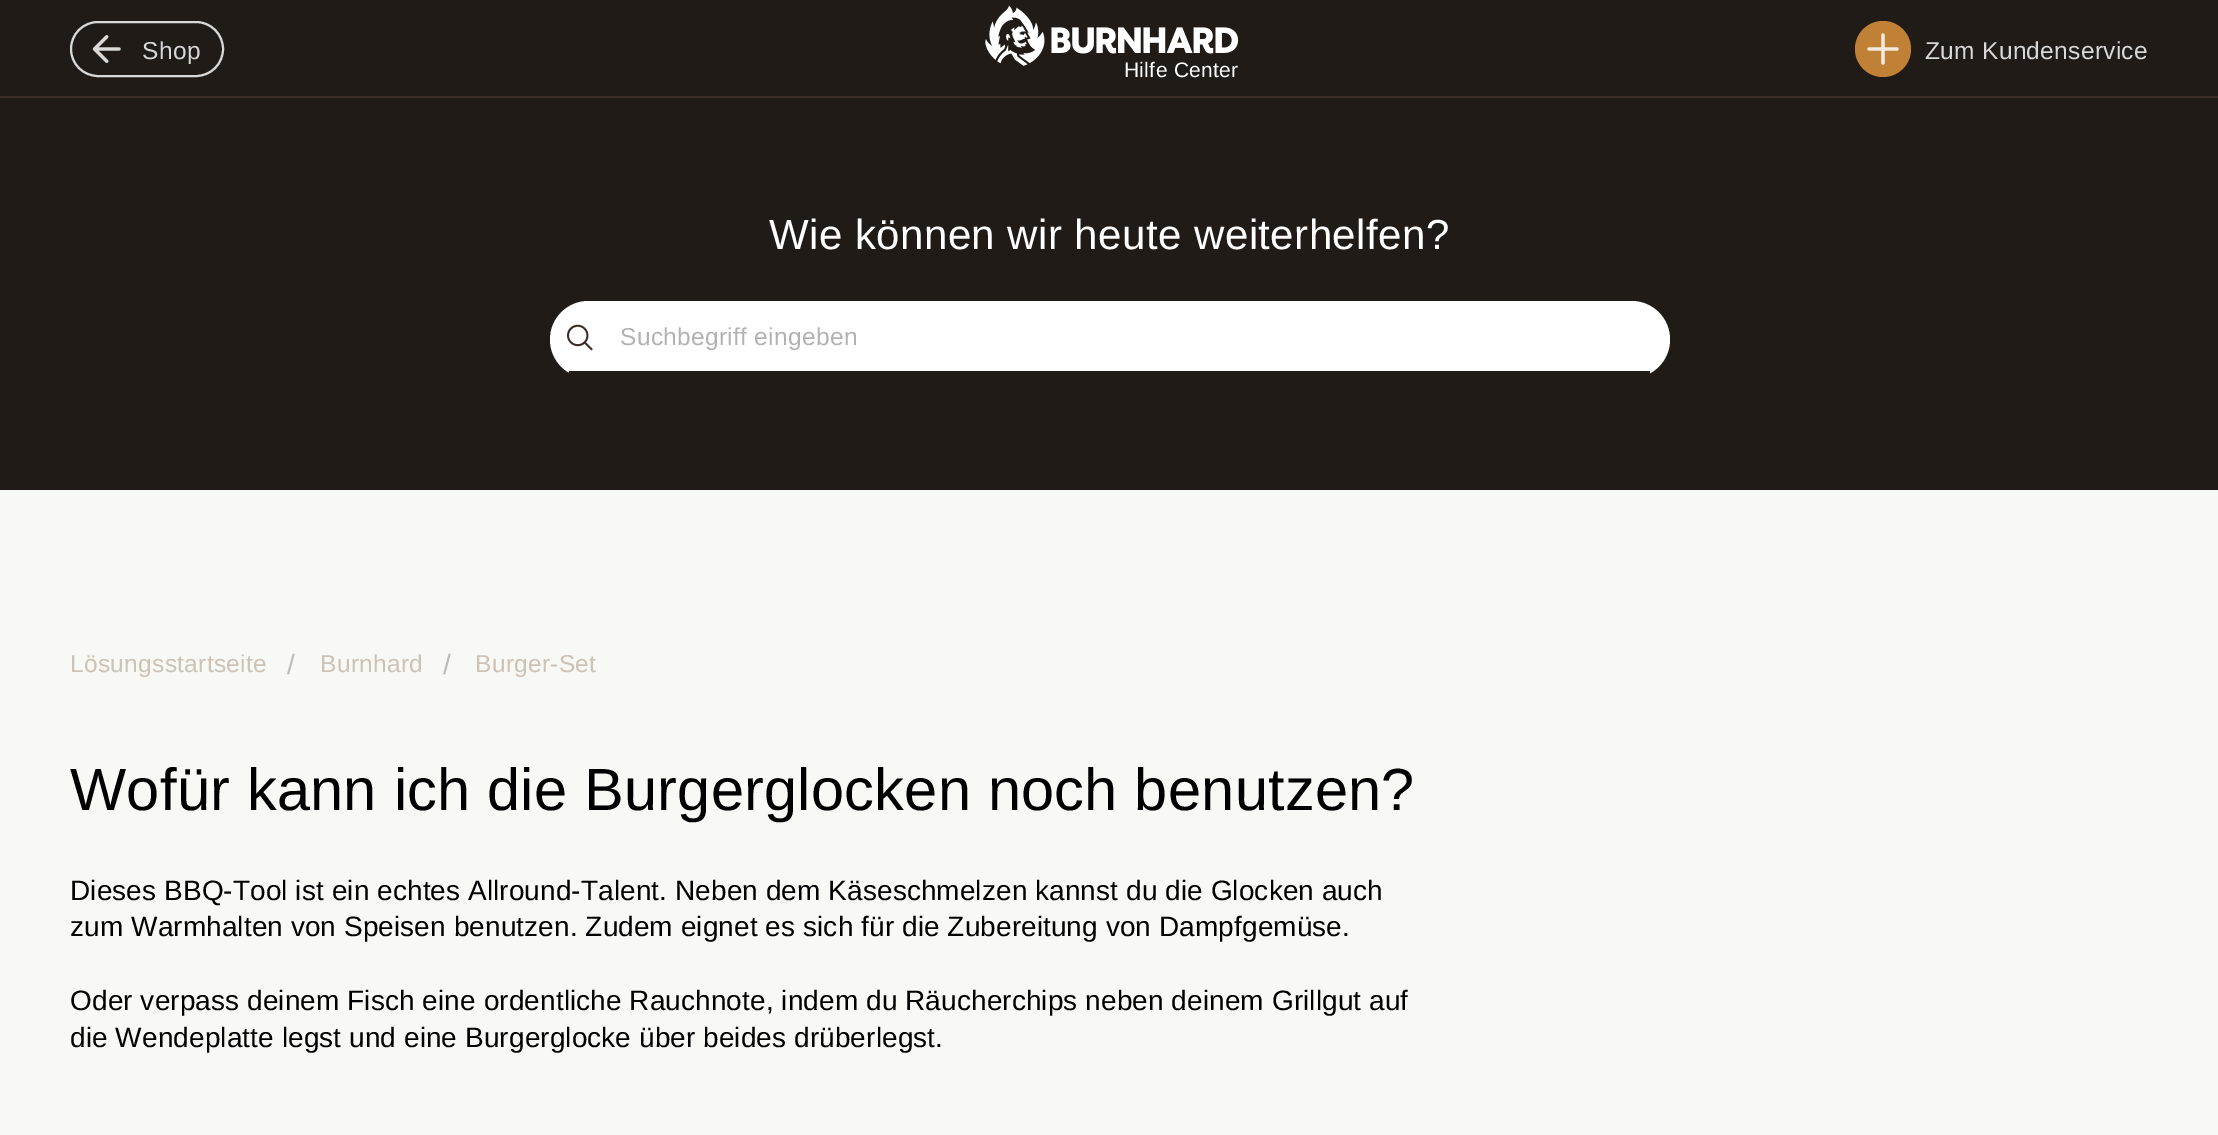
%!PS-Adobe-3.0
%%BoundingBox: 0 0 2218 1135
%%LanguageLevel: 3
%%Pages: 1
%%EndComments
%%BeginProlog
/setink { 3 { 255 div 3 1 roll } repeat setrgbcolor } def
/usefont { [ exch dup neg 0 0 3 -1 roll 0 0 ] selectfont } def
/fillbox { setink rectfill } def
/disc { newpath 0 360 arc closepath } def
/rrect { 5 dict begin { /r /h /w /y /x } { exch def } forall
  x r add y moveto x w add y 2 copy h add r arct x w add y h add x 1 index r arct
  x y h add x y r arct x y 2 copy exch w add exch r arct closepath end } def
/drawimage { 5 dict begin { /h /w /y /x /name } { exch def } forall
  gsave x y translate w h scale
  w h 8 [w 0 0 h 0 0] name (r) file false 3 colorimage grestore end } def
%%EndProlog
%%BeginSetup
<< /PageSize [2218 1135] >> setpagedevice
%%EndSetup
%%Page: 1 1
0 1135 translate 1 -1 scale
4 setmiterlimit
0 0 2218 1135 248 248 244 fillbox
0 0 2218 96 33 27 23 fillbox
0 96 2218 2 60 45 40 fillbox
217 216 216 setink
2 setlinewidth
71 22 152 54 27 rrect stroke
(assets/img1.rgb) 92 35 29 28 drawimage
/LiberationSans-Regular 24.5 usefont
142 59 moveto 0.5 0 (Shop) ashow
192 129 54 setink
1883 49 28 disc fill
(assets/img2.rgb) 1867 33 32 32 drawimage
217 216 216 setink
1925 59 moveto 0.3 0 (Zum Kundenservice) ashow
(assets/img3.rgb) 985 5 254 61 drawimage
/LiberationSans-Regular 21 usefont
255 255 255 setink
1124 77 moveto 0.3 0 (Hilfe Center) ashow
0 98 2218 392 33 27 23 fillbox
/LiberationSans-Regular 42 usefont
255 255 255 setink
769 249 moveto 0.45 0 (Wie können wir heute weiterhelfen?) ashow
550 301 1120 77 38.5 rrect fill
(assets/img4.rgb) 567 324 26 27 drawimage
569 371 1081 7 33 27 23 fillbox
/LiberationSans-Regular 24.5 usefont
178 178 178 setink
620 345 moveto 0.3 0 (Suchbegriff eingeben) ashow
204 194 183 setink
70 672 moveto 0.3 0 (Lösungsstartseite) ashow
/LiberationSans-Regular 28 usefont
187 187 187 setink
287 674 moveto 0.3 0 (/) ashow
/LiberationSans-Regular 24.5 usefont
204 194 183 setink
320 672 moveto 0.3 0 (Burnhard) ashow
/LiberationSans-Regular 28 usefont
187 187 187 setink
443 674 moveto 0.3 0 (/) ashow
/LiberationSans-Regular 24.5 usefont
204 194 183 setink
475 672 moveto 0.3 0 (Burger-Set) ashow
/LiberationSans-Regular 59.5 usefont
0 0 0 setink
70 810 moveto 0.25 0 (Wofür kann ich die Burgerglocken noch benutzen?) ashow
/LiberationSans-Regular 28 usefont
70 900 moveto 0.09 0 (Dieses BBQ-Tool ist ein echtes Allround-Talent. Neben dem Käseschmelzen kannst du die Glocken auch) ashow
70 936 moveto 0.09 0 (zum Warmhalten von Speisen benutzen. Zudem eignet es sich für die Zubereitung von Dampfgemüse.) ashow
70 1010 moveto 0.09 0 (Oder verpass deinem Fisch eine ordentliche Rauchnote, indem du Räucherchips neben deinem Grillgut auf) ashow
70 1047 moveto 0.09 0 (die Wendeplatte legst und eine Burgerglocke über beides drüberlegst.) ashow
showpage
%%EOF
